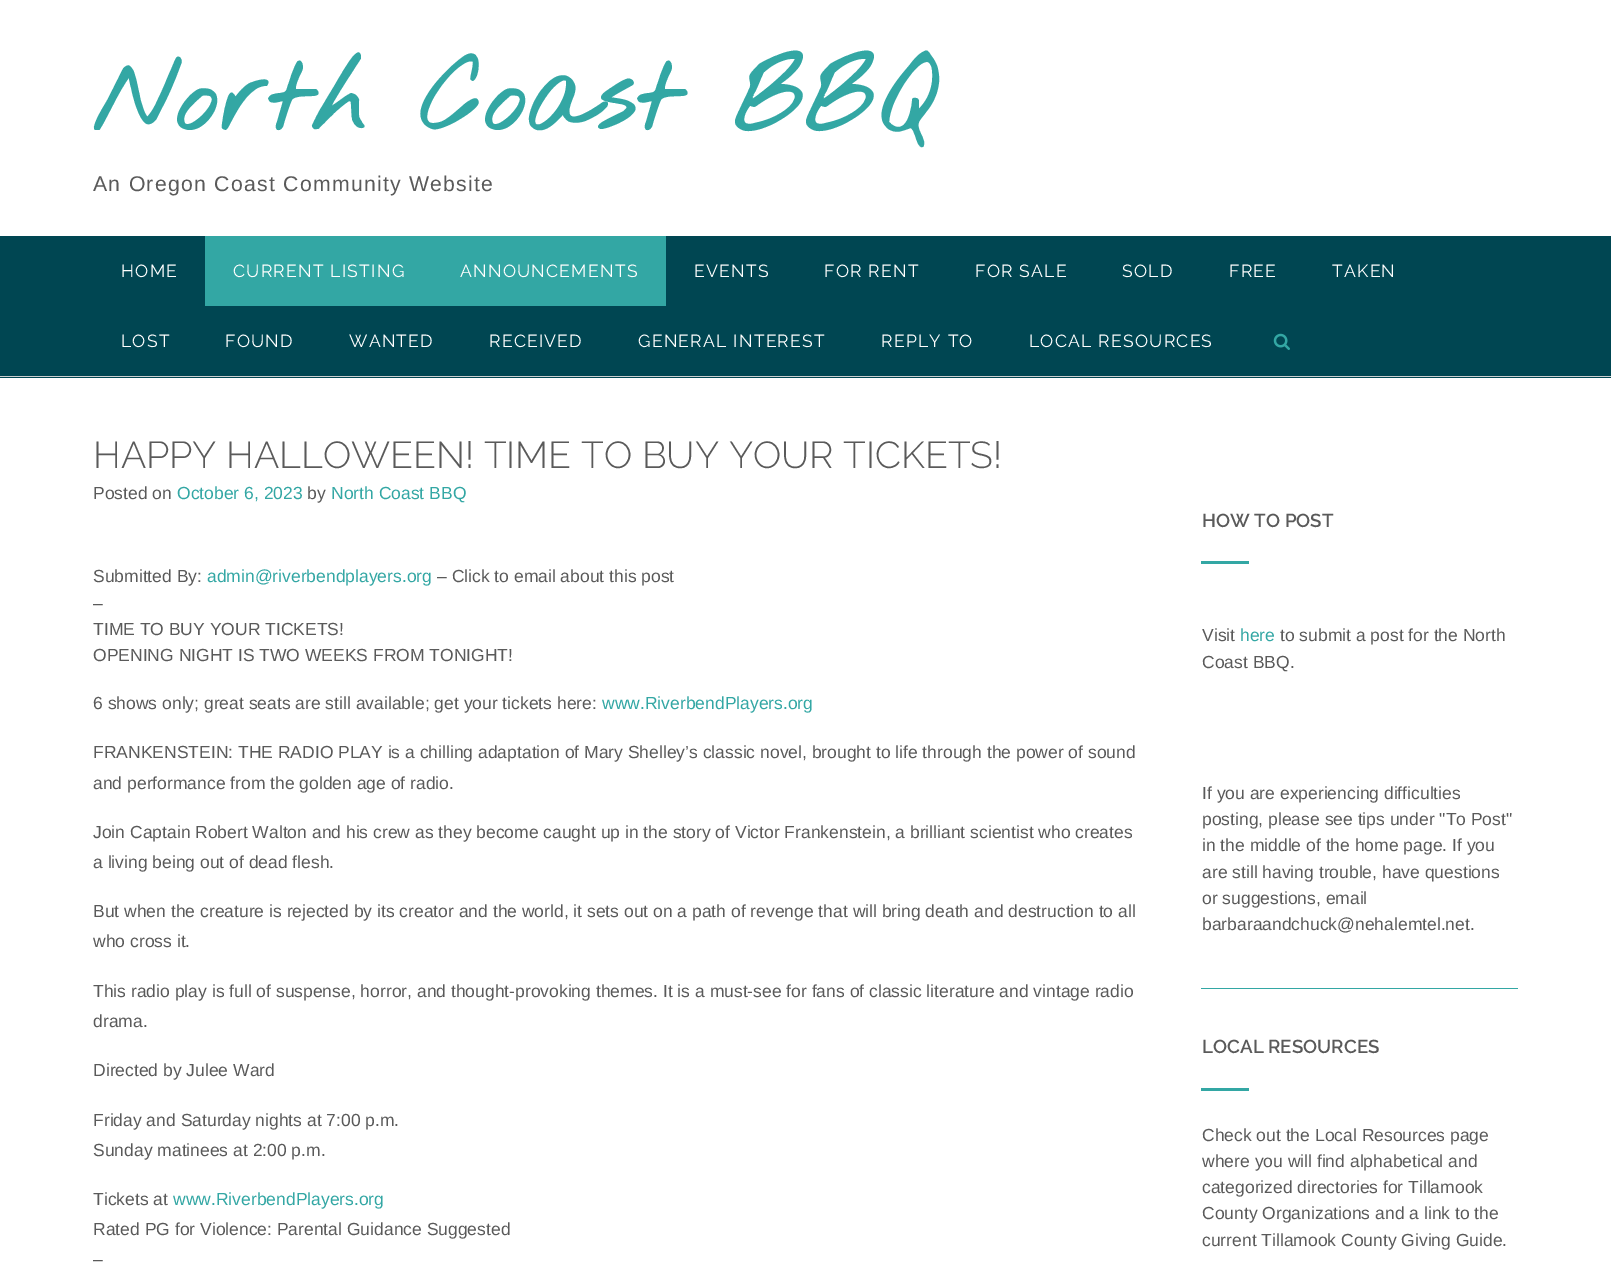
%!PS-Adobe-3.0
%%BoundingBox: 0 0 1611 1282
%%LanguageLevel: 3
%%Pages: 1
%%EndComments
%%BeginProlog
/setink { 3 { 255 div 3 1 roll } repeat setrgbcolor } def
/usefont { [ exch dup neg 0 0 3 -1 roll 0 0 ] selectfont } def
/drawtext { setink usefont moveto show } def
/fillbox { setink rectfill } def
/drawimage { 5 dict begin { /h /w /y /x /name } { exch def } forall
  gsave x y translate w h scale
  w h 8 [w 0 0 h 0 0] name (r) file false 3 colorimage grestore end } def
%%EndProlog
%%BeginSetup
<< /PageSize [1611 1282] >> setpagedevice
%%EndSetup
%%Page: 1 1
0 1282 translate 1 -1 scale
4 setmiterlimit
0 0 1611 1282 255 255 255 fillbox
/NothingYouCouldDo-Bold 100 usefont
51 167 164 setink
93 130 moveto 1.25 0 (North Coast BBQ) ashow
/LiberationSans-Regular 21.25 usefont
90 90 90 setink
93 191 moveto 1.25 0 (An Oregon Coast Community Website) ashow
0 236 1611 142 0 70 82 fillbox
0 376 1611 1 202 207 208 fillbox
/Raleway-Regular 17.5 usefont
255 255 255 setink
121 277 moveto 1.25 0 (HOME) ashow
205 236 461 70 51 167 164 fillbox
255 255 255 setink
233 277 moveto 1.25 0 (CURRENT LISTING) ashow
460 277 moveto 1.25 0 (ANNOUNCEMENTS) ashow
694 277 moveto 1.25 0 (EVENTS) ashow
824 277 moveto 1.25 0 (FOR RENT) ashow
975 277 moveto 1.25 0 (FOR SALE) ashow
1122 277 moveto 1.25 0 (SOLD) ashow
1229 277 moveto 1.25 0 (FREE) ashow
1332 277 moveto 1.25 0 (TAKEN) ashow
121 347 moveto 1.25 0 (LOST) ashow
225 347 moveto 1.25 0 (FOUND) ashow
349 347 moveto 1.25 0 (WANTED) ashow
489 347 moveto 1.25 0 (RECEIVED) ashow
638 347 moveto 1.25 0 (GENERAL INTEREST) ashow
881 347 moveto 1.25 0 (REPLY TO) ashow
1029 347 moveto 1.25 0 (LOCAL RESOURCES) ashow
(assets/img1.rgb) 1273 333 17 17 drawimage
(HAPPY HALLOWEEN! TIME TO BUY YOUR TICKETS!) 93 468 /Raleway-Light 37.5 90 90 90 drawtext
(Posted on) 93 499 /LiberationSans-Regular 17.5 90 90 90 drawtext
(October 6, 2023) 177 499 /LiberationSans-Regular 17.5 51 167 164 drawtext
(by) 307 499 /LiberationSans-Regular 17.5 90 90 90 drawtext
(North Coast BBQ) 331 499 /LiberationSans-Regular 17.5 51 167 164 drawtext
(Submitted By:) 93 582 /LiberationSans-Regular 17.5 90 90 90 drawtext
(admin@riverbendplayers.org) 207 582 /LiberationSans-Regular 17.5 51 167 164 drawtext
(– Click to email about this post) 437 582 /LiberationSans-Regular 17.5 90 90 90 drawtext
(–) 93 609 /LiberationSans-Regular 17.5 90 90 90 drawtext
(TIME TO BUY YOUR TICKETS!) 93 635 /LiberationSans-Regular 17.5 90 90 90 drawtext
(OPENING NIGHT IS TWO WEEKS FROM TONIGHT!) 93 661 /LiberationSans-Regular 17.5 90 90 90 drawtext
(6 shows only; great seats are still available; get your tickets here:) 93 709 /LiberationSans-Regular 17.5 90 90 90 drawtext
(www.RiverbendPlayers.org) 602 709 /LiberationSans-Regular 17.5 51 167 164 drawtext
(FRANKENSTEIN: THE RADIO PLAY is a chilling adaptation of Mary Shelley’s classic novel, brought to life through the power of sound) 93 758 /LiberationSans-Regular 17.5 90 90 90 drawtext
(and performance from the golden age of radio.) 93 789 /LiberationSans-Regular 17.5 90 90 90 drawtext
(Join Captain Robert Walton and his crew as they become caught up in the story of Victor Frankenstein, a brilliant scientist who creates) 93 838 /LiberationSans-Regular 17.5 90 90 90 drawtext
(a living being out of dead flesh.) 93 868 /LiberationSans-Regular 17.5 90 90 90 drawtext
(But when the creature is rejected by its creator and the world, it sets out on a path of revenge that will bring death and destruction to all) 93 917 /LiberationSans-Regular 17.5 90 90 90 drawtext
(who cross it.) 93 947 /LiberationSans-Regular 17.5 90 90 90 drawtext
(This radio play is full of suspense, horror, and thought-provoking themes. It is a must-see for fans of classic literature and vintage radio) 93 997 /LiberationSans-Regular 17.5 90 90 90 drawtext
(drama.) 93 1027 /LiberationSans-Regular 17.5 90 90 90 drawtext
(Directed by Julee Ward) 93 1076 /LiberationSans-Regular 17.5 90 90 90 drawtext
(Friday and Saturday nights at 7:00 p.m.) 93 1126 /LiberationSans-Regular 17.5 90 90 90 drawtext
(Sunday matinees at 2:00 p.m.) 93 1156 /LiberationSans-Regular 17.5 90 90 90 drawtext
(Tickets at) 93 1205 /LiberationSans-Regular 17.5 90 90 90 drawtext
(www.RiverbendPlayers.org) 173 1205 /LiberationSans-Regular 17.5 51 167 164 drawtext
(Rated PG for Violence: Parental Guidance Suggested) 93 1235 /LiberationSans-Regular 17.5 90 90 90 drawtext
(–) 93 1265 /LiberationSans-Regular 17.5 90 90 90 drawtext
1201 988 317 1 51 167 164 fillbox
(HOW TO POST) 1202 527 /Raleway-SemiBold 18.75 90 90 90 drawtext
1201 561 48 3 51 167 164 fillbox
(Visit) 1202 641 /LiberationSans-Regular 17.5 90 90 90 drawtext
(here) 1240 641 /LiberationSans-Regular 17.5 51 167 164 drawtext
(to submit a post for the North) 1280 641 /LiberationSans-Regular 17.5 90 90 90 drawtext
(Coast BBQ.) 1202 668 /LiberationSans-Regular 17.5 90 90 90 drawtext
(If you are experiencing difficulties) 1202 799 /LiberationSans-Regular 17.5 90 90 90 drawtext
(posting, please see tips under "To Post") 1202 825 /LiberationSans-Regular 17.5 90 90 90 drawtext
(in the middle of the home page. If you) 1202 851 /LiberationSans-Regular 17.5 90 90 90 drawtext
(are still having trouble, have questions) 1202 878 /LiberationSans-Regular 17.5 90 90 90 drawtext
(or suggestions, email) 1202 904 /LiberationSans-Regular 17.5 90 90 90 drawtext
(barbaraandchuck@nehalemtel.net.) 1202 930 /LiberationSans-Regular 17.5 90 90 90 drawtext
(LOCAL RESOURCES) 1202 1053 /Raleway-SemiBold 18.75 90 90 90 drawtext
1201 1088 48 3 51 167 164 fillbox
(Check out the Local Resources page) 1202 1141 /LiberationSans-Regular 17.5 90 90 90 drawtext
(where you will find alphabetical and) 1202 1167 /LiberationSans-Regular 17.5 90 90 90 drawtext
(categorized directories for Tillamook) 1202 1193 /LiberationSans-Regular 17.5 90 90 90 drawtext
(County Organizations and a link to the) 1202 1219 /LiberationSans-Regular 17.5 90 90 90 drawtext
(current Tillamook County Giving Guide.) 1202 1246 /LiberationSans-Regular 17.5 90 90 90 drawtext
showpage
%%EOF
